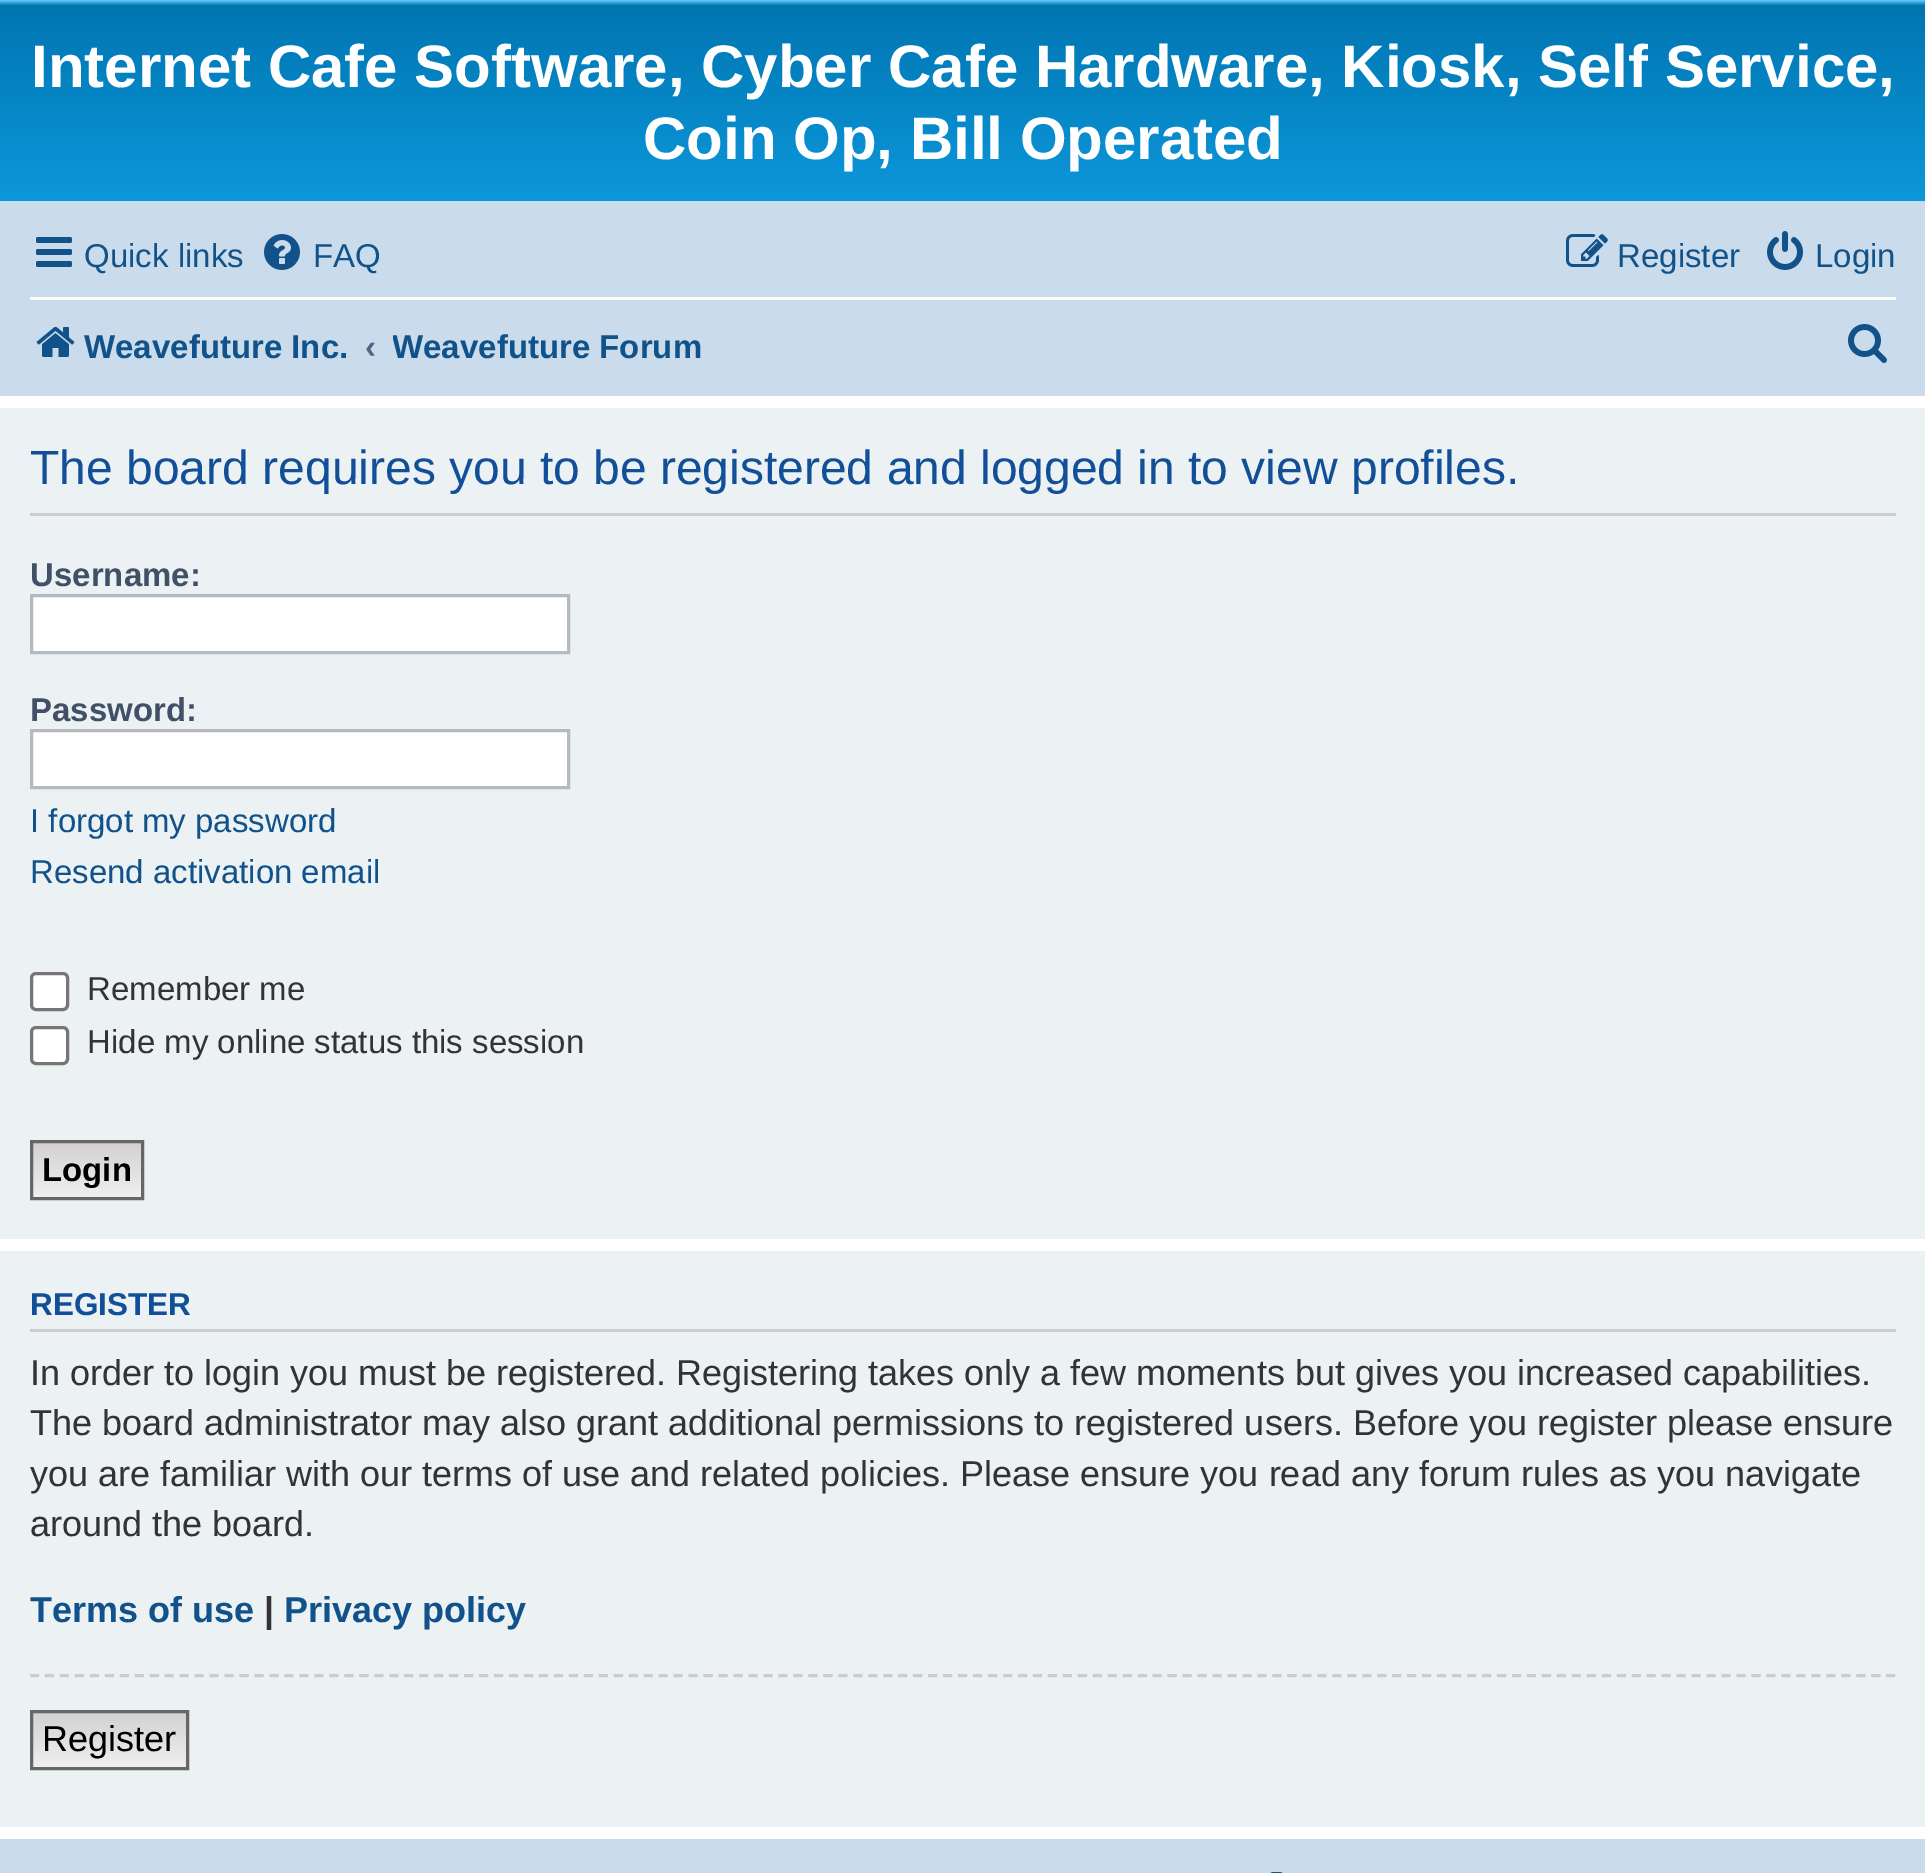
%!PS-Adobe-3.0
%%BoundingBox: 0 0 1925 1873
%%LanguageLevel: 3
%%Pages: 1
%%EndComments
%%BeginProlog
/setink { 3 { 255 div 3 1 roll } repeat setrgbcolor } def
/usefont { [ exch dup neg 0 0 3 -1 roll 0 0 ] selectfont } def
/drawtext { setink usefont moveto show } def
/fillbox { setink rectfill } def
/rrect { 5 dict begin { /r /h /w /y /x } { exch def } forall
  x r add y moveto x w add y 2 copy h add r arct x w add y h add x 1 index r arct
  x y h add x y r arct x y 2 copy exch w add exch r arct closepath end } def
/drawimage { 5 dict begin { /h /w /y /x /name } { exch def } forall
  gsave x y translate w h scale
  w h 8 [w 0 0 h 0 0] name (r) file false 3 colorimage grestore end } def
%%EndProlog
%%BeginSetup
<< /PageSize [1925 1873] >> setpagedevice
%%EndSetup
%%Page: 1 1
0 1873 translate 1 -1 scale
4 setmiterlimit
0 0 1925 1873 255 255 255 fillbox
gsave 0 0 moveto 1925 0 lineto 1925 201 lineto 0 201 lineto closepath clip newpath
<< /ShadingType 2 /ColorSpace /DeviceRGB /Coords [963 0 963 276] /Extend [true true] /Function << /FunctionType 3 /Domain [0 1] /Functions [<< /FunctionType 2 /Domain [0 1] /C0 [0.416 0.808 1] /C1 [0 0.463 0.694] /N 1 >> << /FunctionType 2 /Domain [0 1] /C0 [0 0.463 0.694] /C1 [0.071 0.639 0.922] /N 1 >>] /Bounds [0.02] /Encode [0 1 0 1] >> >> shfill grestore
(Internet Cafe Software, Cyber Cafe Hardware, Kiosk, Self Service,) 31 87 /LiberationSans-Bold 60 255 255 255 drawtext
(Coin Op, Bill Operated) 643 159 /LiberationSans-Bold 60 255 255 255 drawtext
0 201 1925 195 202 220 235 fillbox
(assets/img1.rgb) 36 237 36 30 drawimage
(Quick links) 84 267 /LiberationSans-Regular 33 16 82 137 drawtext
(assets/img2.rgb) 264 234 36 36 drawimage
(FAQ) 313 267 /LiberationSans-Regular 33 16 82 137 drawtext
(assets/img3.rgb) 1566 234 42 33 drawimage
(Register) 1617 267 /LiberationSans-Regular 33 16 82 137 drawtext
(assets/img4.rgb) 1767 231 36 39 drawimage
(Login) 1815 267 /LiberationSans-Regular 33 16 82 137 drawtext
30 297 1866 3 255 255 255 fillbox
(assets/img5.rgb) 36 326 39 31 drawimage
(Weavefuture Inc.) 84 358 /LiberationSans-Bold 33 16 82 137 drawtext
(‹) 365 358 /LiberationSans-Bold 33 83 100 130 drawtext
gsave
393 309 309 72 rectclip
(Weavefuture Forum) 392 358 /LiberationSans-Bold 33 16 82 137 drawtext
grestore
(assets/img6.rgb) 1848 324 39 39 drawimage
0 408 1925 831 236 241 243 fillbox
30 513 1866 3 204 204 204 fillbox
(The board requires you to be registered and logged in to view profiles.) 30 484 /LiberationSans-Regular 48 17 80 152 drawtext
(Username:) 30 586 /LiberationSans-Bold 33 66 80 103 drawtext
255 255 255 setink
31.5 595.5 moveto 568.5 595.5 lineto 568.5 652.5 lineto 31.5 652.5 lineto closepath gsave fill grestore
180 186 192 setink
3 setlinewidth
stroke
(Password:) 30 721 /LiberationSans-Bold 33 66 80 103 drawtext
255 255 255 setink
31.5 730.5 moveto 568.5 730.5 lineto 568.5 787.5 lineto 31.5 787.5 lineto closepath gsave fill grestore
180 186 192 setink
stroke
(I forgot my password) 30 832 /LiberationSans-Regular 33 16 82 137 drawtext
(Resend activation email) 30 883 /LiberationSans-Regular 33 16 82 137 drawtext
255 255 255 setink
31.5 973.5 36 36 4.5 rrect gsave fill grestore
118 118 118 setink
stroke
(Remember me) 87 1000 /LiberationSans-Regular 33 51 51 51 drawtext
255 255 255 setink
31.5 1027.5 36 36 4.5 rrect gsave fill grestore
118 118 118 setink
stroke
(Hide my online status this session) 87 1053 /LiberationSans-Regular 33 51 51 51 drawtext
gsave 33 1143 moveto 141 1143 lineto 141 1197 lineto 33 1197 lineto closepath clip newpath
<< /ShadingType 2 /ColorSpace /DeviceRGB /Coords [87 1143 87 1197] /Extend [true true] /Function << /FunctionType 2 /Domain [0 1] /C0 [0.824 0.824 0.824] /C1 [0.937 0.937 0.937] /N 1 >> >> shfill grestore
102 102 102 setink
31.5 1141.5 111 57 rectstroke
(Login) 42 1181 /LiberationSans-Bold 33 0 0 0 drawtext
0 1251 1925 576 236 241 243 fillbox
30 1329 1866 3 204 204 204 fillbox
(REGISTER) 30 1315 /LiberationSans-Bold 31.5 17 80 152 drawtext
(In order to login you must be registered. Registering takes only a few moments but gives you increased capabilities.) 30 1385 /LiberationSans-Regular 36 51 51 51 drawtext
(The board administrator may also grant additional permissions to registered users. Before you register please ensure) 30 1435 /LiberationSans-Regular 36 51 51 51 drawtext
(you are familiar with our terms of use and related policies. Please ensure you read any forum rules as you navigate) 30 1486 /LiberationSans-Regular 36 51 51 51 drawtext
(around the board.) 30 1536 /LiberationSans-Regular 36 51 51 51 drawtext
(Terms of use) 30 1622 /LiberationSans-Bold 36 16 82 137 drawtext
(|) 264 1622 /LiberationSans-Bold 36 51 51 51 drawtext
(Privacy policy) 284 1622 /LiberationSans-Bold 36 16 82 137 drawtext
204 204 204 setink
[9 5.97] 0 setdash
30 1675.5 moveto 1896 1675.5 lineto stroke
gsave 33 1713 moveto 186 1713 lineto 186 1767 lineto 33 1767 lineto closepath clip newpath
<< /ShadingType 2 /ColorSpace /DeviceRGB /Coords [110 1713 110 1767] /Extend [true true] /Function << /FunctionType 2 /Domain [0 1] /C0 [0.824 0.824 0.824] /C1 [0.937 0.937 0.937] /N 1 >> >> shfill grestore
102 102 102 setink
[] 0 setdash
31.5 1711.5 156 57 rectstroke
(Register) 42 1751 /LiberationSans-Regular 36 0 0 0 drawtext
0 1839 1925 34 202 220 235 fillbox
(assets/img7.rgb) 1270 1872 13 1 drawimage
showpage
%%EOF
